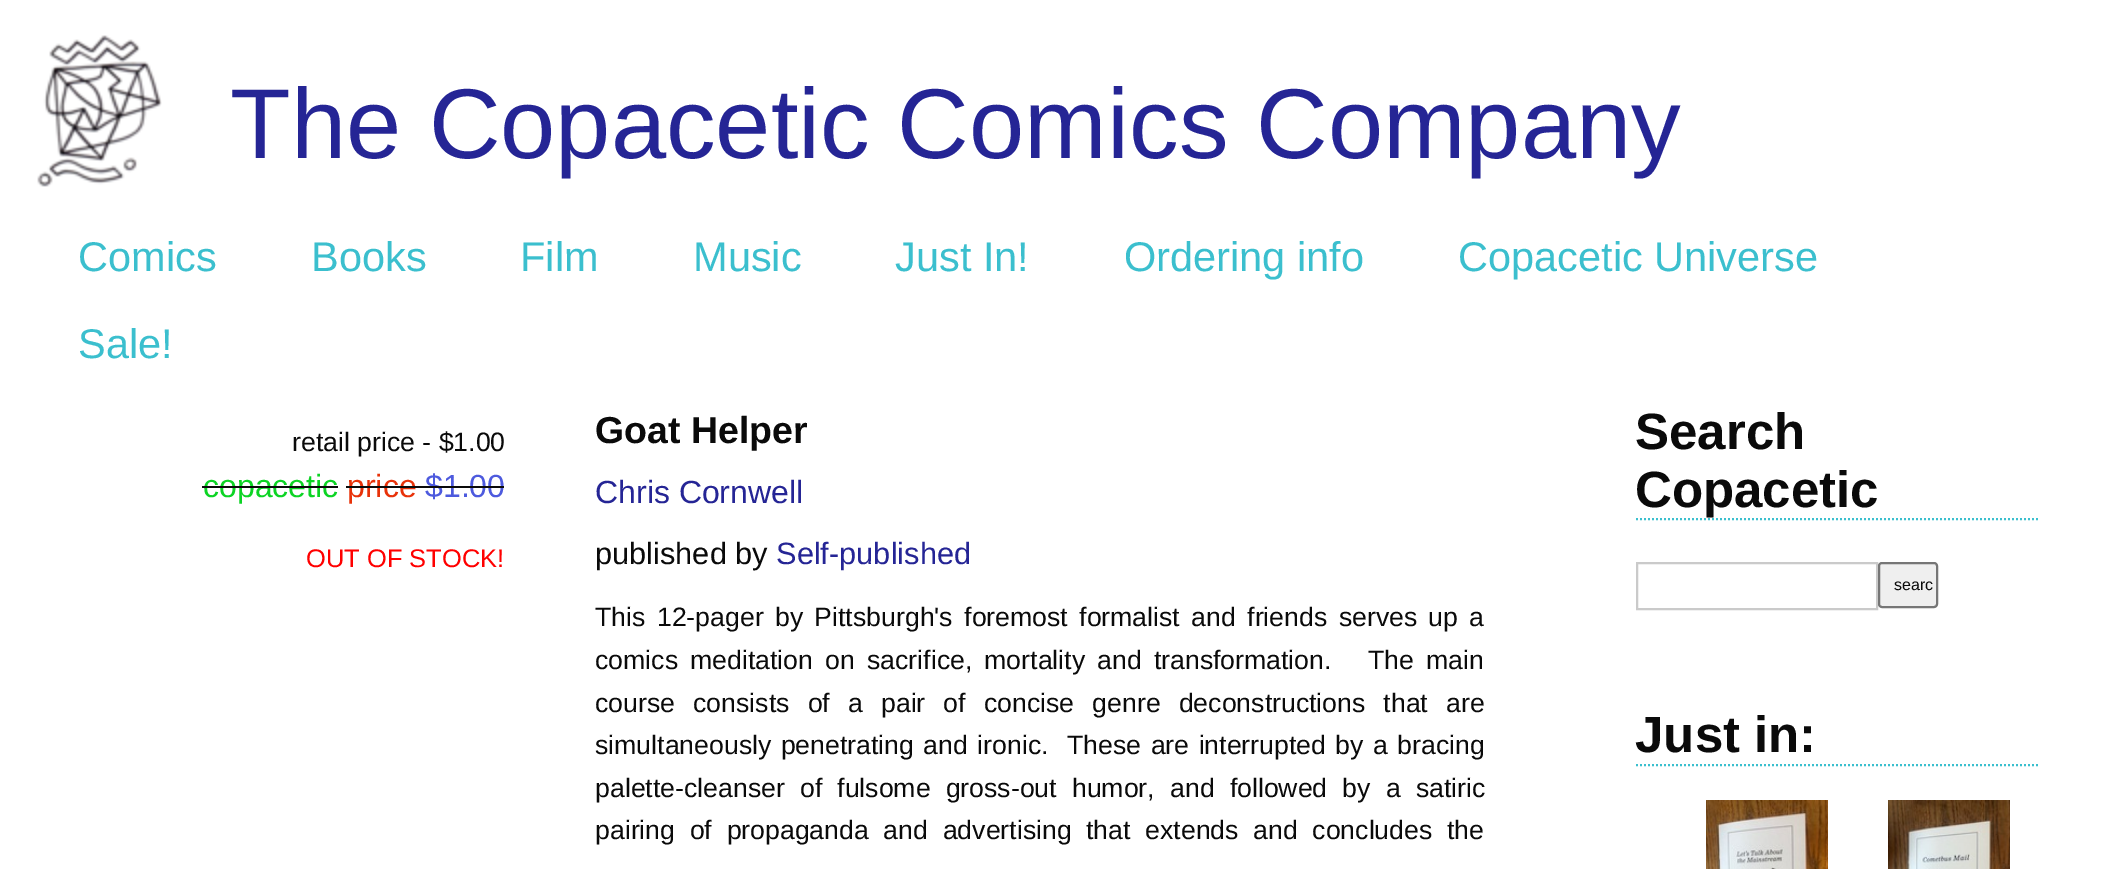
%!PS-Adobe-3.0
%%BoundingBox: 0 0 2120 869
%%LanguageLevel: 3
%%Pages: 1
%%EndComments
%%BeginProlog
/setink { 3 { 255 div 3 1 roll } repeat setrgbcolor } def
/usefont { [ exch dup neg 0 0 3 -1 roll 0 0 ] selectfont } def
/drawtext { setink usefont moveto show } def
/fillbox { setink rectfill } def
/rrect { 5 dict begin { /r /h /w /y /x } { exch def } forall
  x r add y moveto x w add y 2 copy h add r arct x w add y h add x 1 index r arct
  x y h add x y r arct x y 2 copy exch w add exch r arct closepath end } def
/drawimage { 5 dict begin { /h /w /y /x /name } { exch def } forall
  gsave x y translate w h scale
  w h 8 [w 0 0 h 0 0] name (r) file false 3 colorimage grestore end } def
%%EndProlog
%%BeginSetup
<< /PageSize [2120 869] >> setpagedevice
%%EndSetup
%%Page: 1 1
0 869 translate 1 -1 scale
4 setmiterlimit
0 0 2120 869 255 255 255 fillbox
(assets/img1.rgb) 37 35 125 152 drawimage
(The Copacetic Comics Company) 230 158 /LiberationSans-Regular 99.25 37 37 149 drawtext
(Comics) 78 271 /LiberationSans-Regular 41.5 59 191 206 drawtext
(Books) 311 271 /LiberationSans-Regular 41.5 59 191 206 drawtext
(Film) 520 271 /LiberationSans-Regular 41.5 59 191 206 drawtext
(Music) 693 271 /LiberationSans-Regular 41.5 59 191 206 drawtext
(Just In!) 895 271 /LiberationSans-Regular 41.5 59 191 206 drawtext
(Ordering info) 1124 271 /LiberationSans-Regular 41.5 59 191 206 drawtext
(Copacetic Universe) 1458 271 /LiberationSans-Regular 41.5 59 191 206 drawtext
(Sale!) 78 358 /LiberationSans-Regular 41.5 59 191 206 drawtext
(retail price - $1.00) 292 451 /LiberationSans-Regular 26.65 10 10 10 drawtext
(copacetic) 203 497 /LiberationSans-Regular 32 12 212 36 drawtext
202 486 136 2 10 10 10 fillbox
(price) 347 497 /LiberationSans-Regular 32 232 50 9 drawtext
346 486 70 2 10 10 10 fillbox
($1.00) 425 497 /LiberationSans-Regular 32 77 90 222 drawtext
416 486 88 2 10 10 10 fillbox
(OUT OF STOCK!) 306 567 /LiberationSans-Regular 25.5 255 0 0 drawtext
(Goat Helper) 595 443 /LiberationSans-Bold 37.5 10 10 10 drawtext
(Chris Cornwell) 595 503 /LiberationSans-Regular 32 37 37 149 drawtext
(published by) 595 564 /LiberationSans-Regular 30.75 10 10 10 drawtext
(Self-published) 776 564 /LiberationSans-Regular 30.75 37 37 149 drawtext
/LiberationSans-Regular 26.65 usefont
10 10 10 setink
595 626 moveto 4 0 32 (This 12-pager by Pittsburgh's foremost formalist and friends serves up a) widthshow
595 669 moveto 4.75 0 32 (comics meditation on sacrifice, mortality and transformation.   The main) widthshow
595 712 moveto 10.75 0 32 (course consists of a pair of concise genre deconstructions that are) widthshow
595 754 moveto 2 0 32 (simultaneously penetrating and ironic.  These are interrupted by a bracing) widthshow
595 797 moveto 7.75 0 32 (palette-cleanser of fulsome gross-out humor, and followed by a satiric) widthshow
595 839 moveto 7.25 0 32 (pairing of propaganda and advertising that extends and concludes the) widthshow
59 191 206 setink
2 setlinewidth
[2 2] 0 setdash
1636 519 moveto 2040 519 lineto stroke
(Search) 1635 449 /LiberationSans-Bold 51 10 10 10 drawtext
(Copacetic) 1635 507 /LiberationSans-Bold 51 10 10 10 drawtext
202 202 202 setink
[] 0 setdash
1637 563 240 46 rectstroke
239 239 239 setink
1879 563 58 44 3 rrect gsave fill grestore
118 118 118 setink
stroke
(searc) 1894 590 /LiberationSans-Regular 16 10 10 10 drawtext
59 191 206 setink
[2 2] 0 setdash
1636 765 moveto 2040 765 lineto stroke
(Just in:) 1635 752 /LiberationSans-Bold 51 10 10 10 drawtext
(assets/img2.rgb) 1706 800 122 69 drawimage
(assets/img3.rgb) 1888 800 122 69 drawimage
showpage
%%EOF
